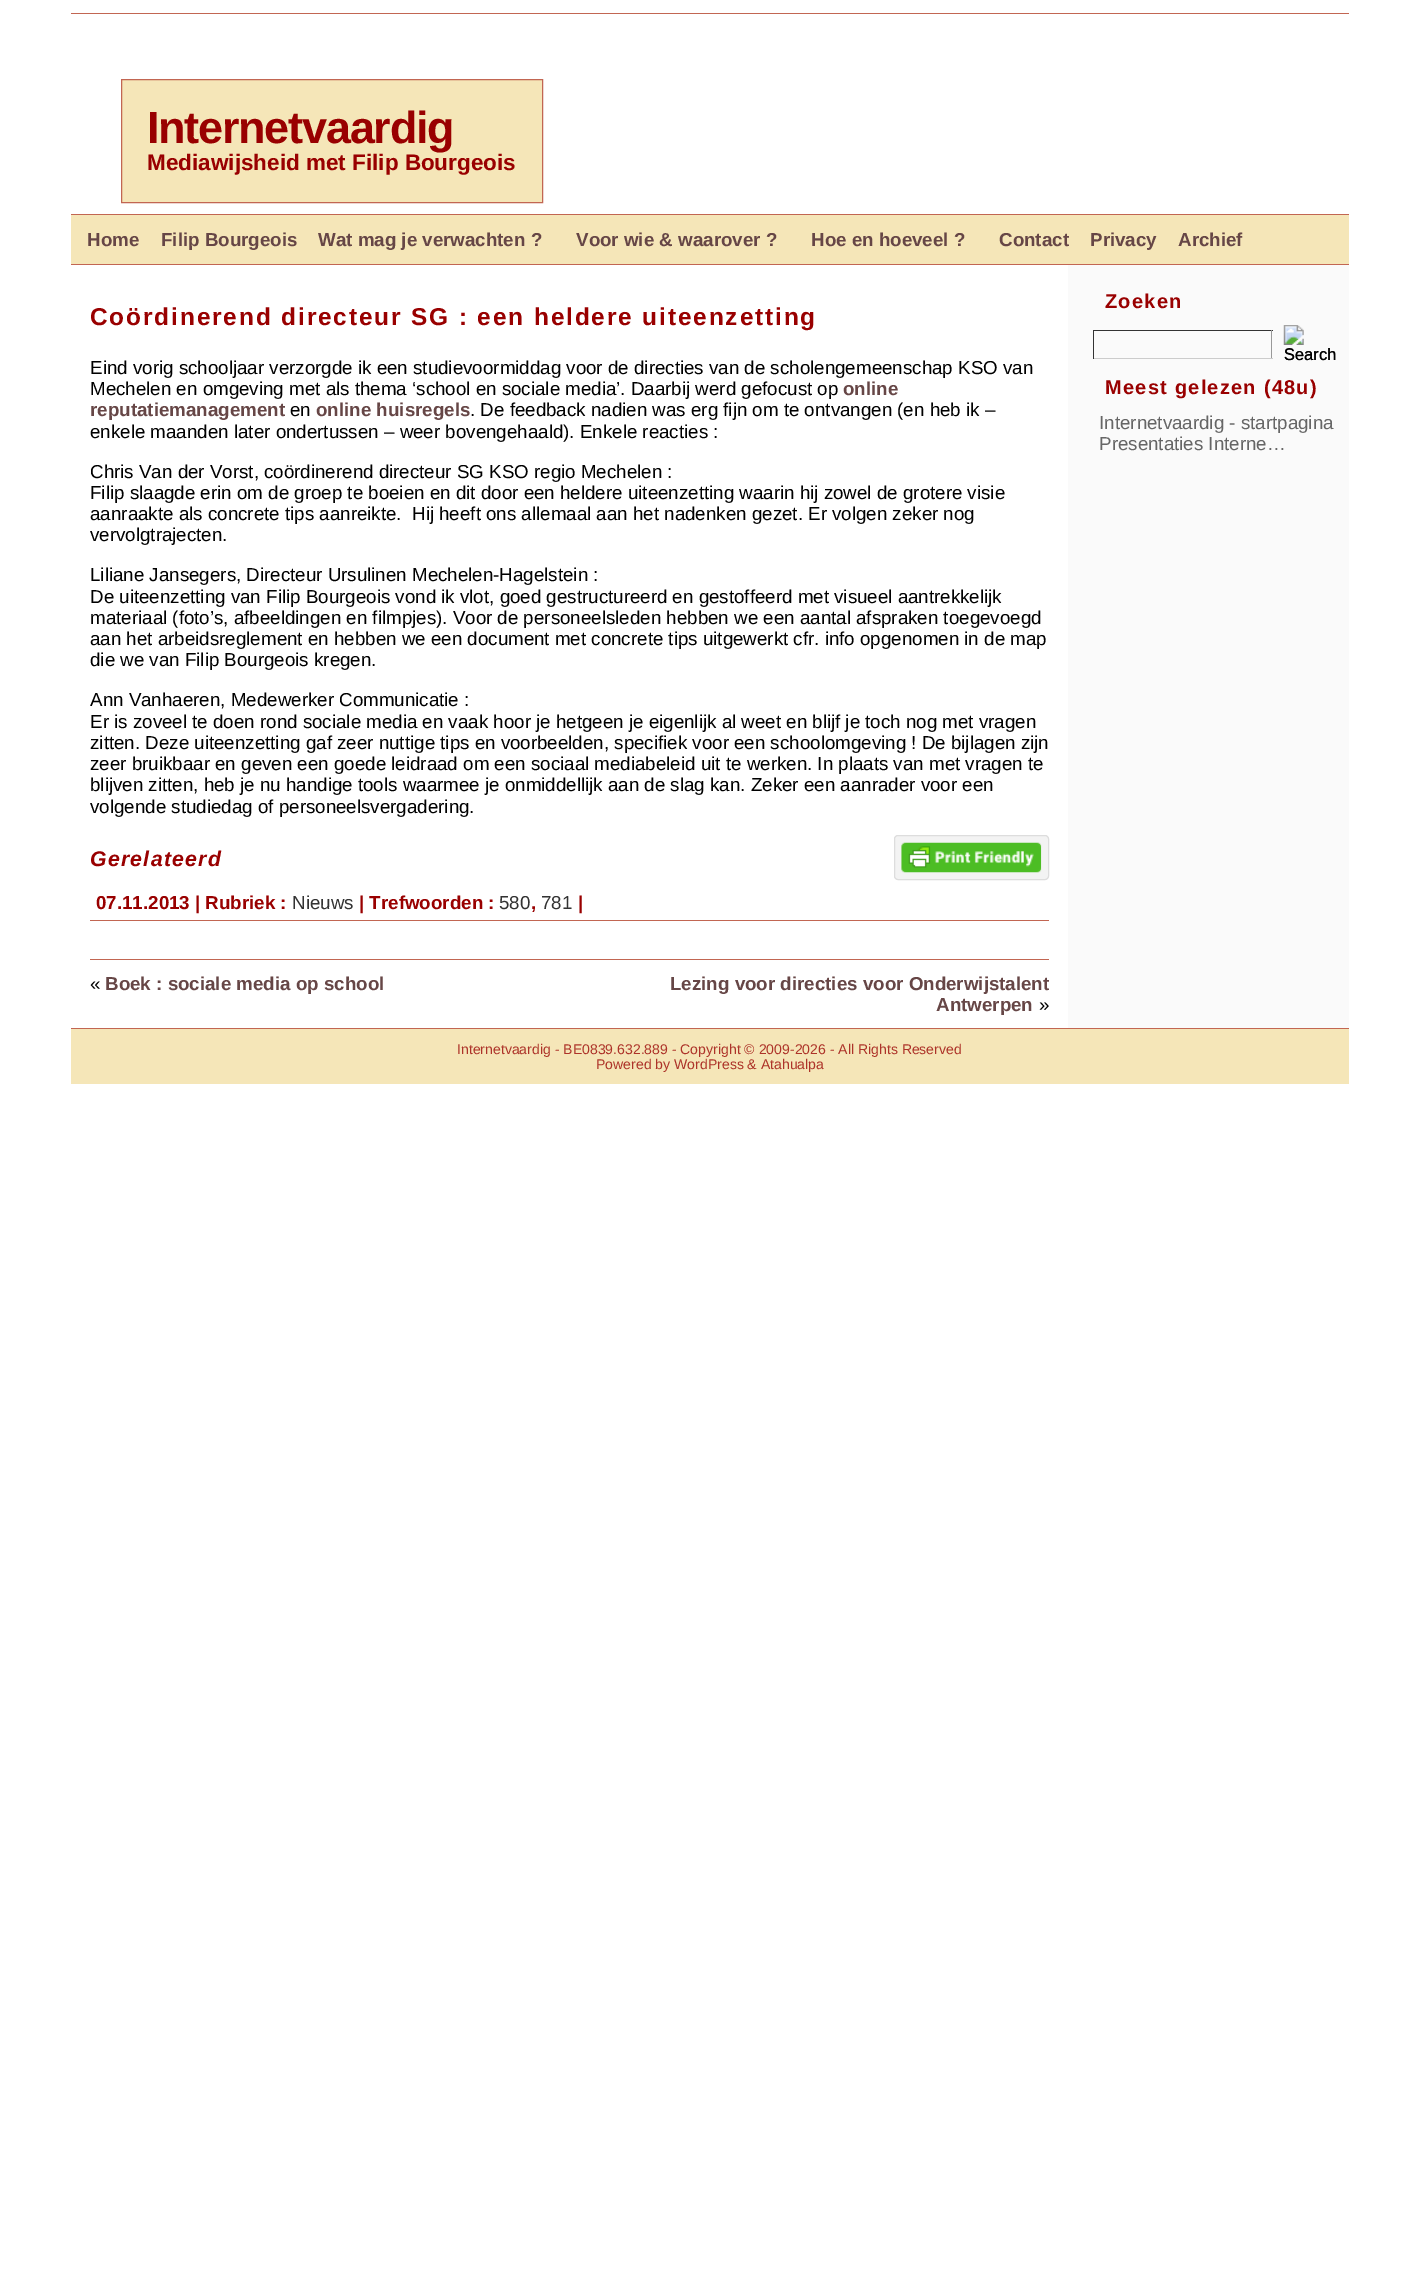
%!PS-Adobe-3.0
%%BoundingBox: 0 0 1420 2291
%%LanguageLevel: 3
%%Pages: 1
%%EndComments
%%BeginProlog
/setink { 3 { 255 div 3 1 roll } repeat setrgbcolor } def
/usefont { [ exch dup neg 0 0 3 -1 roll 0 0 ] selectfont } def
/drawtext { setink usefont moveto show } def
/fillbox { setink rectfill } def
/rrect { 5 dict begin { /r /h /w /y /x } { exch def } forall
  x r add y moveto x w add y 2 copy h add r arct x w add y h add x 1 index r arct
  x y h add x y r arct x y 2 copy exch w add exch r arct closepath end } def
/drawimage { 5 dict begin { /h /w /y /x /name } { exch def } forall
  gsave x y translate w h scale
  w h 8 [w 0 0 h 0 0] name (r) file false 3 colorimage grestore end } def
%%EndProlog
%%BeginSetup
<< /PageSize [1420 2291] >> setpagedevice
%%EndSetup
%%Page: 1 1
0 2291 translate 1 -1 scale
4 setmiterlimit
0 0 1420 2291 255 255 255 fillbox
71 13 1278 1 194 102 82 fillbox
245 230 184 setink
121.5 79.5 moveto 542.5 79.5 lineto 542.5 202.5 lineto 121.5 202.5 lineto closepath gsave fill grestore
194 102 82 setink
stroke
/LiberationSans-Bold 45 usefont
153 0 0 setink
147 143 moveto -1.25 0 (Internetvaardig) ashow
(Mediawijsheid met Filip Bourgeois) 147 170 /LiberationSans-Bold 22.5 153 0 0 drawtext
71 214 1278 1 194 102 82 fillbox
71 215 1278 49 245 230 184 fillbox
(Home) 87 246 /LiberationSans-Bold 18.75 102 70 70 drawtext
(Filip Bourgeois) 161 246 /LiberationSans-Bold 18.75 102 70 70 drawtext
(Wat mag je verwachten ?) 318 246 /LiberationSans-Bold 18.75 102 70 70 drawtext
(Voor wie & waarover ?) 576 246 /LiberationSans-Bold 18.75 102 70 70 drawtext
(Hoe en hoeveel ?) 811 246 /LiberationSans-Bold 18.75 102 70 70 drawtext
(Contact) 999 246 /LiberationSans-Bold 18.75 102 70 70 drawtext
(Privacy) 1090 246 /LiberationSans-Bold 18.75 102 70 70 drawtext
(Archief) 1178 246 /LiberationSans-Bold 18.75 102 70 70 drawtext
71 264 1278 1 194 102 82 fillbox
/LiberationSans-Bold 24.4 usefont
153 0 0 setink
90 325 moveto 1.88 0 (Coördinerend directeur SG : een heldere uiteenzetting) ashow
(Eind vorig schooljaar verzorgde ik een studievoormiddag voor de directies van de scholengemeenschap KSO van) 90 374 /LiberationSans-Regular 18.75 0 0 0 drawtext
(Mechelen en omgeving met als thema ‘school en sociale media’. Daarbij werd gefocust op) 90 395 /LiberationSans-Regular 18.75 0 0 0 drawtext
(online) 843 395 /LiberationSans-Bold 18.75 102 70 70 drawtext
(reputatiemanagement) 90 416 /LiberationSans-Bold 18.75 102 70 70 drawtext
(en) 290 416 /LiberationSans-Regular 18.75 0 0 0 drawtext
(online huisregels) 316 416 /LiberationSans-Bold 18.75 102 70 70 drawtext
(. De feedback nadien was erg fijn om te ontvangen \(en heb ik –) 470 416 /LiberationSans-Regular 18.75 0 0 0 drawtext
(enkele maanden later ondertussen – weer bovengehaald\). Enkele reacties :) 90 438 /LiberationSans-Regular 18.75 0 0 0 drawtext
(Chris Van der Vorst, coördinerend directeur SG KSO regio Mechelen :) 90 478 /LiberationSans-Regular 18.75 0 0 0 drawtext
(Filip slaagde erin om de groep te boeien en dit door een heldere uiteenzetting waarin hij zowel de grotere visie) 90 499 /LiberationSans-Regular 18.75 0 0 0 drawtext
(aanraakte als concrete tips aanreikte.  Hij heeft ons allemaal aan het nadenken gezet. Er volgen zeker nog) 90 520 /LiberationSans-Regular 18.75 0 0 0 drawtext
(vervolgtrajecten.) 90 541 /LiberationSans-Regular 18.75 0 0 0 drawtext
(Liliane Jansegers, Directeur Ursulinen Mechelen-Hagelstein :) 90 581 /LiberationSans-Regular 18.75 0 0 0 drawtext
(De uiteenzetting van Filip Bourgeois vond ik vlot, goed gestructureerd en gestoffeerd met visueel aantrekkelijk) 90 603 /LiberationSans-Regular 18.75 0 0 0 drawtext
(materiaal \(foto’s, afbeeldingen en filmpjes\). Voor de personeelsleden hebben we een aantal afspraken toegevoegd) 90 624 /LiberationSans-Regular 18.75 0 0 0 drawtext
(aan het arbeidsreglement en hebben we een document met concrete tips uitgewerkt cfr. info opgenomen in de map) 90 645 /LiberationSans-Regular 18.75 0 0 0 drawtext
(die we van Filip Bourgeois kregen.) 90 666 /LiberationSans-Regular 18.75 0 0 0 drawtext
(Ann Vanhaeren, Medewerker Communicatie :) 90 706 /LiberationSans-Regular 18.75 0 0 0 drawtext
(Er is zoveel te doen rond sociale media en vaak hoor je hetgeen je eigenlijk al weet en blijf je toch nog met vragen) 90 728 /LiberationSans-Regular 18.75 0 0 0 drawtext
(zitten. Deze uiteenzetting gaf zeer nuttige tips en voorbeelden, specifiek voor een schoolomgeving ! De bijlagen zijn) 90 749 /LiberationSans-Regular 18.75 0 0 0 drawtext
(zeer bruikbaar en geven een goede leidraad om een sociaal mediabeleid uit te werken. In plaats van met vragen te) 90 770 /LiberationSans-Regular 18.75 0 0 0 drawtext
(blijven zitten, heb je nu handige tools waarmee je onmiddellijk aan de slag kan. Zeker een aanrader voor een) 90 791 /LiberationSans-Regular 18.75 0 0 0 drawtext
(volgende studiedag of personeelsvergadering.) 90 813 /LiberationSans-Regular 18.75 0 0 0 drawtext
243 243 243 setink
894.5 835.5 154 44 3.5 rrect gsave fill grestore
221 221 221 setink
stroke
(assets/img1.rgb) 901 842 141 31 drawimage
/LiberationSans-BoldItalic 21.25 usefont
153 0 0 setink
90 866 moveto 1.25 0 (Gerelateerd) ashow
90 920 959 1 194 102 82 fillbox
(07.11.2013 | Rubriek :) 96 909 /LiberationSans-Bold 18.75 153 0 0 drawtext
(Nieuws) 292 909 /LiberationSans-Regular 18.75 51 51 51 drawtext
(| Trefwoorden :) 359 909 /LiberationSans-Bold 18.75 153 0 0 drawtext
(580) 499 909 /LiberationSans-Regular 18.75 51 51 51 drawtext
(,) 531 909 /LiberationSans-Bold 18.75 153 0 0 drawtext
(781) 541 909 /LiberationSans-Regular 18.75 51 51 51 drawtext
(|) 578 909 /LiberationSans-Bold 18.75 153 0 0 drawtext
90 959 959 1 194 102 82 fillbox
(«) 90 990 /LiberationSans-Regular 18.75 0 0 0 drawtext
(Boek : sociale media op school) 105 990 /LiberationSans-Bold 18.75 102 70 70 drawtext
(Lezing voor directies voor Onderwijstalent) 670 990 /LiberationSans-Bold 18.75 102 70 70 drawtext
(Antwerpen) 936 1011 /LiberationSans-Bold 18.75 102 70 70 drawtext
(») 1039 1011 /LiberationSans-Regular 18.75 0 0 0 drawtext
1068 265 281 763 250 250 250 fillbox
/LiberationSans-Bold 20 usefont
153 0 0 setink
1105 308 moveto 1.25 0 (Zoeken) ashow
1093 330 180 1 51 51 51 fillbox
1271 330 1 29 153 153 153 fillbox
1093 358 180 1 204 204 204 fillbox
1093 330 1 29 51 51 51 fillbox
(assets/img2.rgb) 1283 325 53 35 drawimage
(Search) 1284 360 /LiberationSans-Regular 16.5 0 0 0 drawtext
/LiberationSans-Bold 20 usefont
153 0 0 setink
1105 394 moveto 1.25 0 (Meest gelezen \(48u\)) ashow
(Internetvaardig - startpagina) 1099 429 /LiberationSans-Regular 18.75 102 102 102 drawtext
(Presentaties Interne…) 1099 450 /LiberationSans-Regular 18.75 102 102 102 drawtext
71 1029 1278 55 245 230 184 fillbox
71 1028 1278 1 194 102 82 fillbox
(Internetvaardig - BE0839.632.889 - Copyright © 2009-2026 - All Rights Reserved) 457 1054 /LiberationSans-Regular 14.05 173 51 41 drawtext
(Powered by WordPress & Atahualpa) 596 1069 /LiberationSans-Regular 14.05 173 51 41 drawtext
showpage
%%EOF
